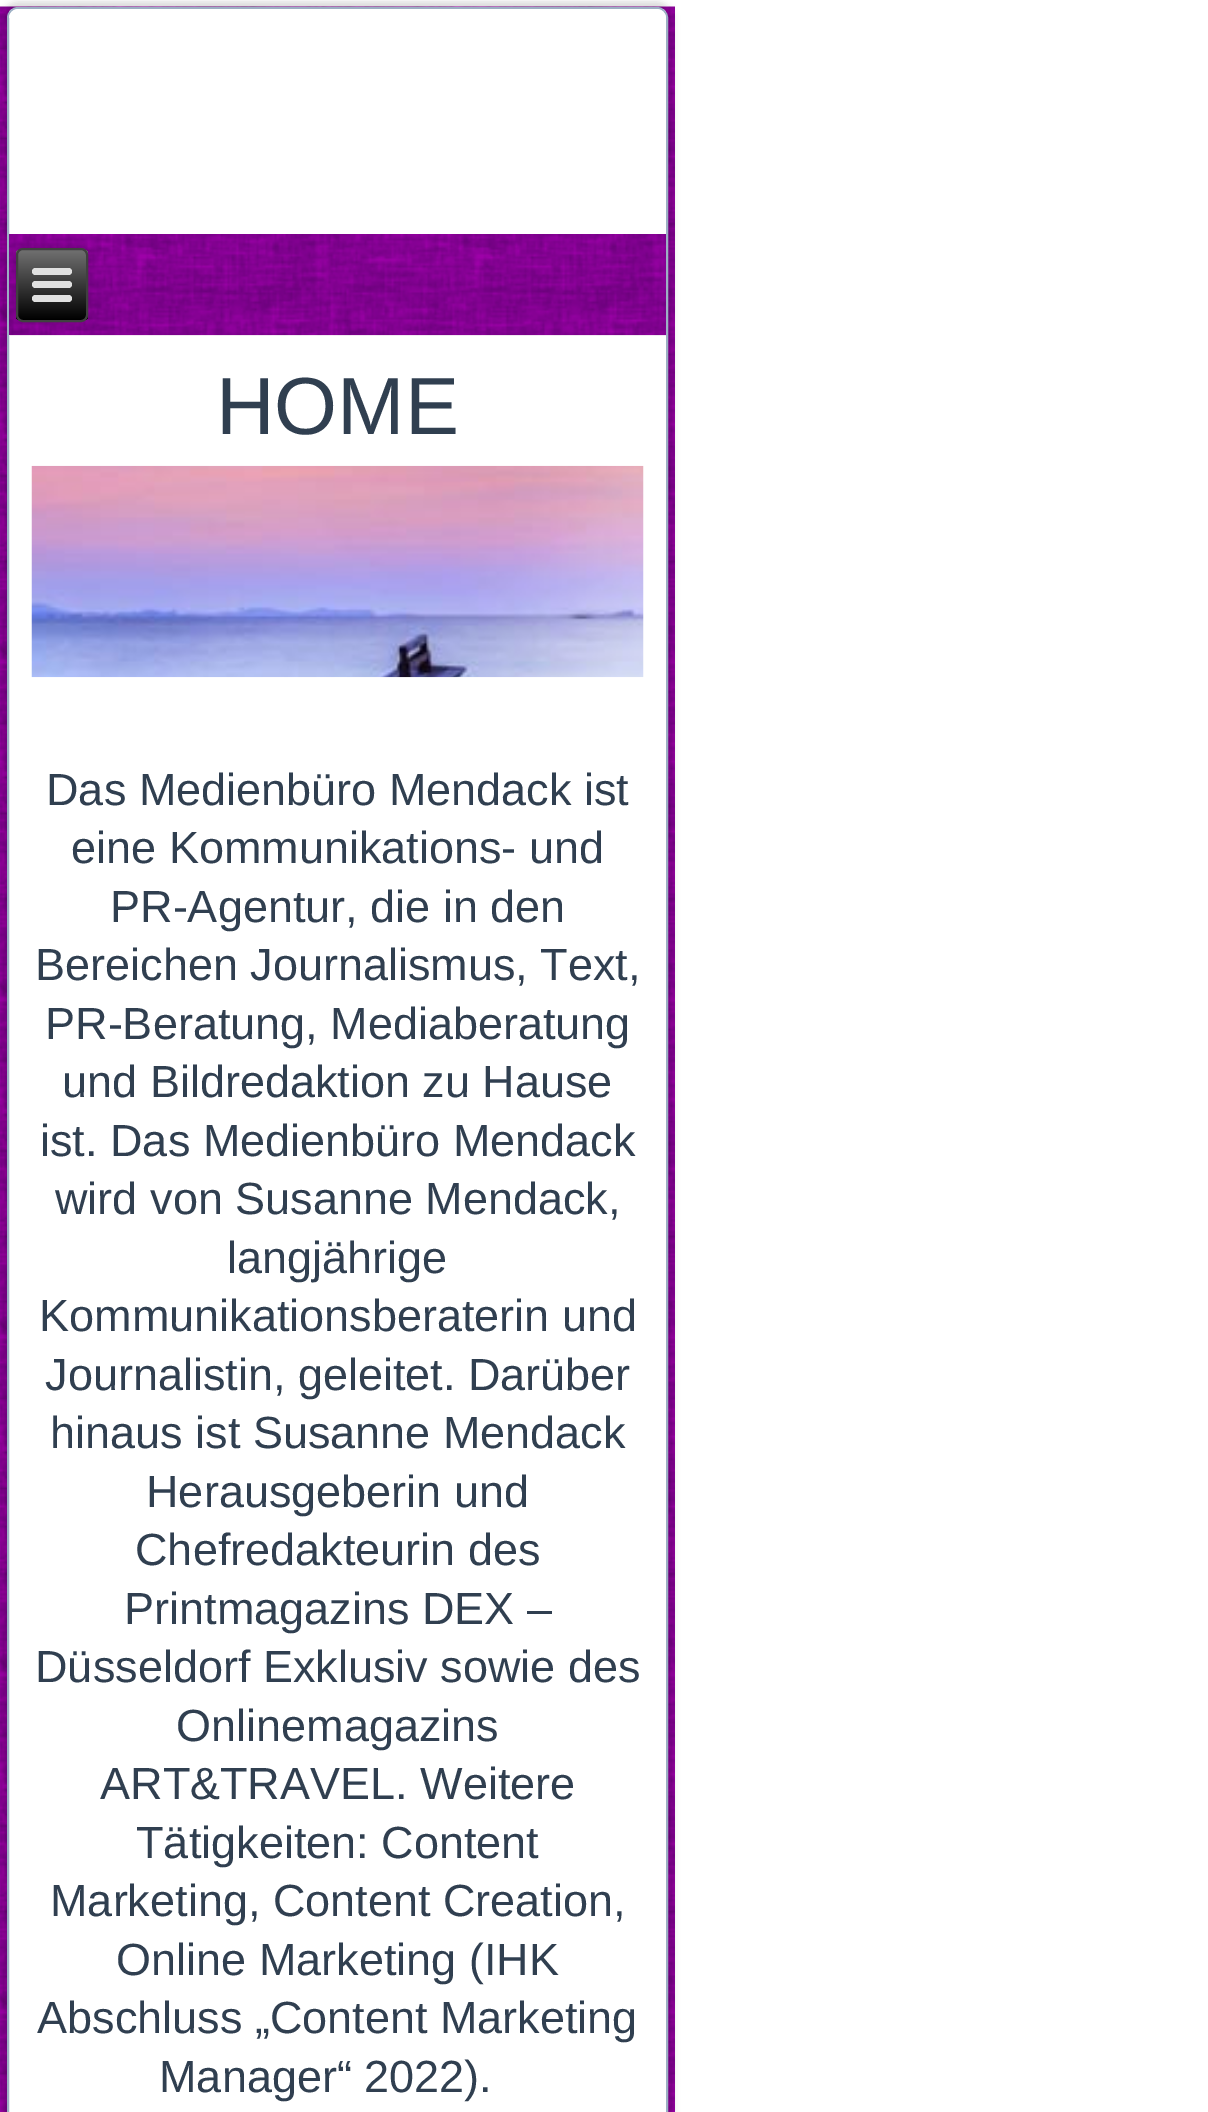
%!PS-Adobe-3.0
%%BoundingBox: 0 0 1208 2112
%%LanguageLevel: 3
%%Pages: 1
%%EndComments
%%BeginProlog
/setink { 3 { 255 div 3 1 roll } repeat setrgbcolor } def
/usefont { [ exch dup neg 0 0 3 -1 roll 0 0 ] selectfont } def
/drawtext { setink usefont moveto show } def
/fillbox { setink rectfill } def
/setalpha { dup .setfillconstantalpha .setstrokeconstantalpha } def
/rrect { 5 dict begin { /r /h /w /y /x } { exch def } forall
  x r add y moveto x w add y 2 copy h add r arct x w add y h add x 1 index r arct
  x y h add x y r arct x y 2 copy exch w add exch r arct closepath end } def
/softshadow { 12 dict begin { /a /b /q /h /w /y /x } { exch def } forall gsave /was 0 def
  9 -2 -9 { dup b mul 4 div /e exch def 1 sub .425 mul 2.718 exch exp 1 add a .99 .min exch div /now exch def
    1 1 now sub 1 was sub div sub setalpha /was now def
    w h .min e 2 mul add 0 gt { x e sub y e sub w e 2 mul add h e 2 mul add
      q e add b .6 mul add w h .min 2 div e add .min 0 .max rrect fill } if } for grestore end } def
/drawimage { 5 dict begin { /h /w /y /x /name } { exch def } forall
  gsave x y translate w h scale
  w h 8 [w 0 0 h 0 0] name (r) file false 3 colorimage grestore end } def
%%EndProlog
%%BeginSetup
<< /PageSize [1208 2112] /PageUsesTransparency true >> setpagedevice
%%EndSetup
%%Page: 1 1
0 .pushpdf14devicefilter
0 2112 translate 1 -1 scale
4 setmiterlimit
0 0 1208 2112 255 255 255 fillbox
0 7 675 2105 132 1 146 fillbox
(assets/img1.rgb) 0 6 675 2106 drawimage
0 0 0 setink
2 2 671 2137 16 3.5 0.15 softshadow
255 255 255 setink
8 8 659 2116 10 rrect gsave fill grestore
156 175 196 setink
2 setlinewidth
stroke
(assets/img2.rgb) 9 9 657 9 drawimage
9 234 657 101 132 1 146 fillbox
(assets/img3.rgb) 9 234 657 102 drawimage
0 0 0 setink
16 248 72 74 7 3.5 0.2 softshadow
gsave
16 248 72 74 7 rrect clip newpath
gsave 16 250 moveto 88 250 lineto 88 320 lineto 16 320 lineto closepath clip newpath
<< /ShadingType 2 /ColorSpace /DeviceRGB /Coords [52 250 52 320] /Extend [true true] /Function << /FunctionType 2 /Domain [0 1] /C0 [0.439 0.439 0.439] /C1 [0 0 0] /N 1 >> >> shfill grestore
grestore
64 64 64 setink
17 249 70 72 6 rrect stroke
224 224 224 setink
32 268 40 7 3.5 rrect fill
32 281 40 7 3.5 rrect fill
32 295 40 7 3.5 rrect fill
(HOME) 216 434 /LiberationSans-Regular 81 48 63 80 drawtext
(assets/img4.rgb) 31 465 613 213 drawimage
(Das Medienbüro Mendack ist) 46 805 /LiberationSans-Regular 45 48 63 80 drawtext
(eine Kommunikations- und) 71 863 /LiberationSans-Regular 45 48 63 80 drawtext
(PR-Agentur, die in den) 110 922 /LiberationSans-Regular 45 48 63 80 drawtext
(Bereichen Journalismus, Text,) 35 980 /LiberationSans-Regular 45 48 63 80 drawtext
(PR-Beratung, Mediaberatung) 45 1039 /LiberationSans-Regular 45 48 63 80 drawtext
(und Bildredaktion zu Hause) 62 1097 /LiberationSans-Regular 45 48 63 80 drawtext
(ist. Das Medienbüro Mendack) 40 1156 /LiberationSans-Regular 45 48 63 80 drawtext
(wird von Susanne Mendack,) 55 1214 /LiberationSans-Regular 45 48 63 80 drawtext
(langjährige) 227 1273 /LiberationSans-Regular 45 48 63 80 drawtext
(Kommunikationsberaterin und) 39 1331 /LiberationSans-Regular 45 48 63 80 drawtext
(Journalistin, geleitet. Darüber) 45 1390 /LiberationSans-Regular 45 48 63 80 drawtext
(hinaus ist Susanne Mendack) 50 1448 /LiberationSans-Regular 45 48 63 80 drawtext
(Herausgeberin und) 146 1507 /LiberationSans-Regular 45 48 63 80 drawtext
(Chefredakteurin des) 135 1565 /LiberationSans-Regular 45 48 63 80 drawtext
(Printmagazins DEX –) 124 1624 /LiberationSans-Regular 45 48 63 80 drawtext
(Düsseldorf Exklusiv sowie des) 35 1682 /LiberationSans-Regular 45 48 63 80 drawtext
(Onlinemagazins) 176 1741 /LiberationSans-Regular 45 48 63 80 drawtext
(ART&TRAVEL. Weitere) 100 1799 /LiberationSans-Regular 45 48 63 80 drawtext
(Tätigkeiten: Content) 136 1858 /LiberationSans-Regular 45 48 63 80 drawtext
(Marketing, Content Creation,) 50 1916 /LiberationSans-Regular 45 48 63 80 drawtext
(Online Marketing \(IHK) 116 1975 /LiberationSans-Regular 45 48 63 80 drawtext
(Abschluss „Content Marketing) 37 2033 /LiberationSans-Regular 45 48 63 80 drawtext
(Manager“ 2022\).) 159 2092 /LiberationSans-Regular 45 48 63 80 drawtext
.poppdf14devicefilter showpage
%%EOF
